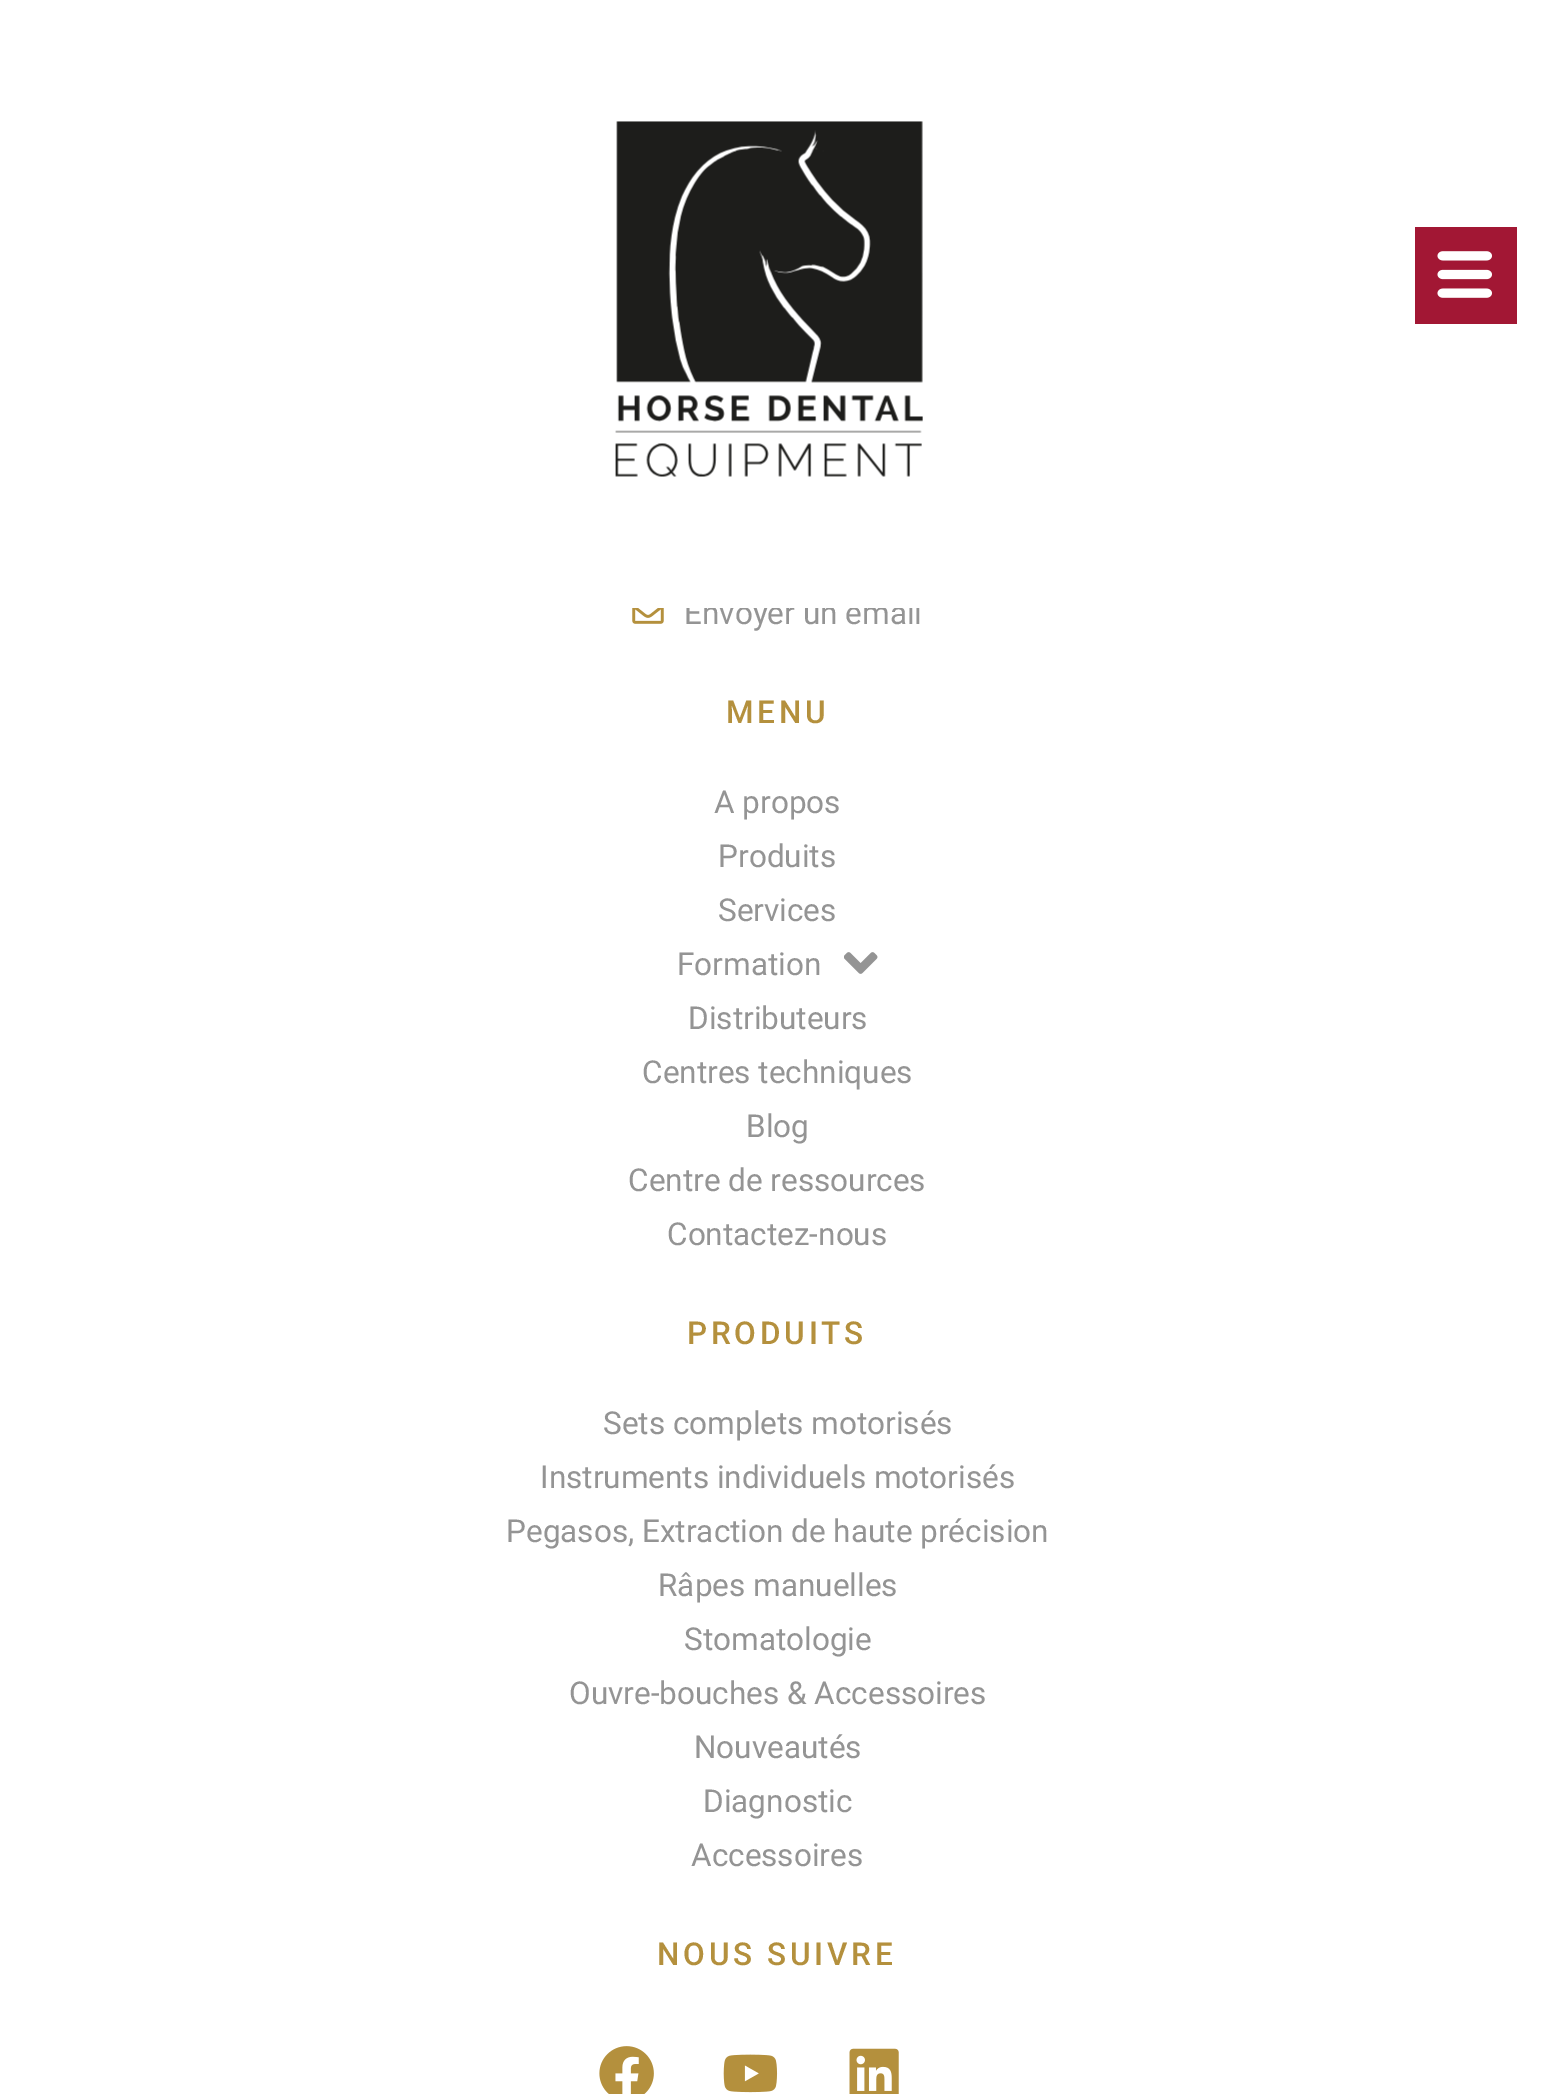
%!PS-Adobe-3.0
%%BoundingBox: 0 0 1553 2094
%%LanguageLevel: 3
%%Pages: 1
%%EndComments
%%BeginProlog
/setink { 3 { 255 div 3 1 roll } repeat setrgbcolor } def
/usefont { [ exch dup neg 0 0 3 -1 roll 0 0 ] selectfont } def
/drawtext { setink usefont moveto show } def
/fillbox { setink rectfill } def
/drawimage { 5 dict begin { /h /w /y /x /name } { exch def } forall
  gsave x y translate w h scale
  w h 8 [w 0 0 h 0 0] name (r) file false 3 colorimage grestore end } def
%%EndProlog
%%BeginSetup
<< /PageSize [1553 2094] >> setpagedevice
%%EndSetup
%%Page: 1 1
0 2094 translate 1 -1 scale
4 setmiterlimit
0 0 1553 2094 255 255 255 fillbox
(Envoyer un email) 684 624 /Roboto-Regular 31.5 148 148 148 drawtext
686 600 234 8 255 255 255 fillbox
(assets/img1.rgb) 615 121 308 356 drawimage
1415 227 102 97 162 23 52 fillbox
(assets/img2.rgb) 1437 251 55 47 drawimage
(assets/img3.rgb) 632 608 32 16 drawimage
/Roboto-Medium 31.5 usefont
180 144 61 setink
726 723 moveto 3.75 0 (MENU) ashow
(A propos) 714 813 /Roboto-Regular 31.5 148 148 148 drawtext
(Produits) 718 867 /Roboto-Regular 31.5 148 148 148 drawtext
(Services) 718 921 /Roboto-Regular 31.5 148 148 148 drawtext
(Formation) 677 975 /Roboto-Regular 31.5 148 148 148 drawtext
(assets/img4.rgb) 844 952 34 22 drawimage
(Distributeurs) 688 1029 /Roboto-Regular 31.5 148 148 148 drawtext
(Centres techniques) 642 1083 /Roboto-Regular 31.5 148 148 148 drawtext
(Blog) 746 1137 /Roboto-Regular 31.5 148 148 148 drawtext
(Centre de ressources) 628 1191 /Roboto-Regular 31.5 148 148 148 drawtext
(Contactez-nous) 667 1245 /Roboto-Regular 31.5 148 148 148 drawtext
/Roboto-Medium 31.5 usefont
180 144 61 setink
687 1344 moveto 3.75 0 (PRODUITS) ashow
(Sets complets motorisés) 603 1434 /Roboto-Regular 31.5 148 148 148 drawtext
(Instruments individuels motorisés) 540 1488 /Roboto-Regular 31.5 148 148 148 drawtext
(Pegasos, Extraction de haute précision) 506 1542 /Roboto-Regular 31.5 148 148 148 drawtext
(Râpes manuelles) 658 1596 /Roboto-Regular 31.5 148 148 148 drawtext
(Stomatologie) 684 1650 /Roboto-Regular 31.5 148 148 148 drawtext
(Ouvre-bouches & Accessoires) 569 1704 /Roboto-Regular 31.5 148 148 148 drawtext
(Nouveautés) 694 1758 /Roboto-Regular 31.5 148 148 148 drawtext
(Diagnostic) 703 1812 /Roboto-Regular 31.5 148 148 148 drawtext
(Accessoires) 691 1866 /Roboto-Regular 31.5 148 148 148 drawtext
/Roboto-Medium 31.5 usefont
180 144 61 setink
657 1965 moveto 3.75 0 (NOUS SUIVRE) ashow
(assets/img5.rgb) 599 2046 55 48 drawimage
(assets/img6.rgb) 723 2054 55 39 drawimage
(assets/img7.rgb) 849 2048 50 46 drawimage
showpage
%%EOF
